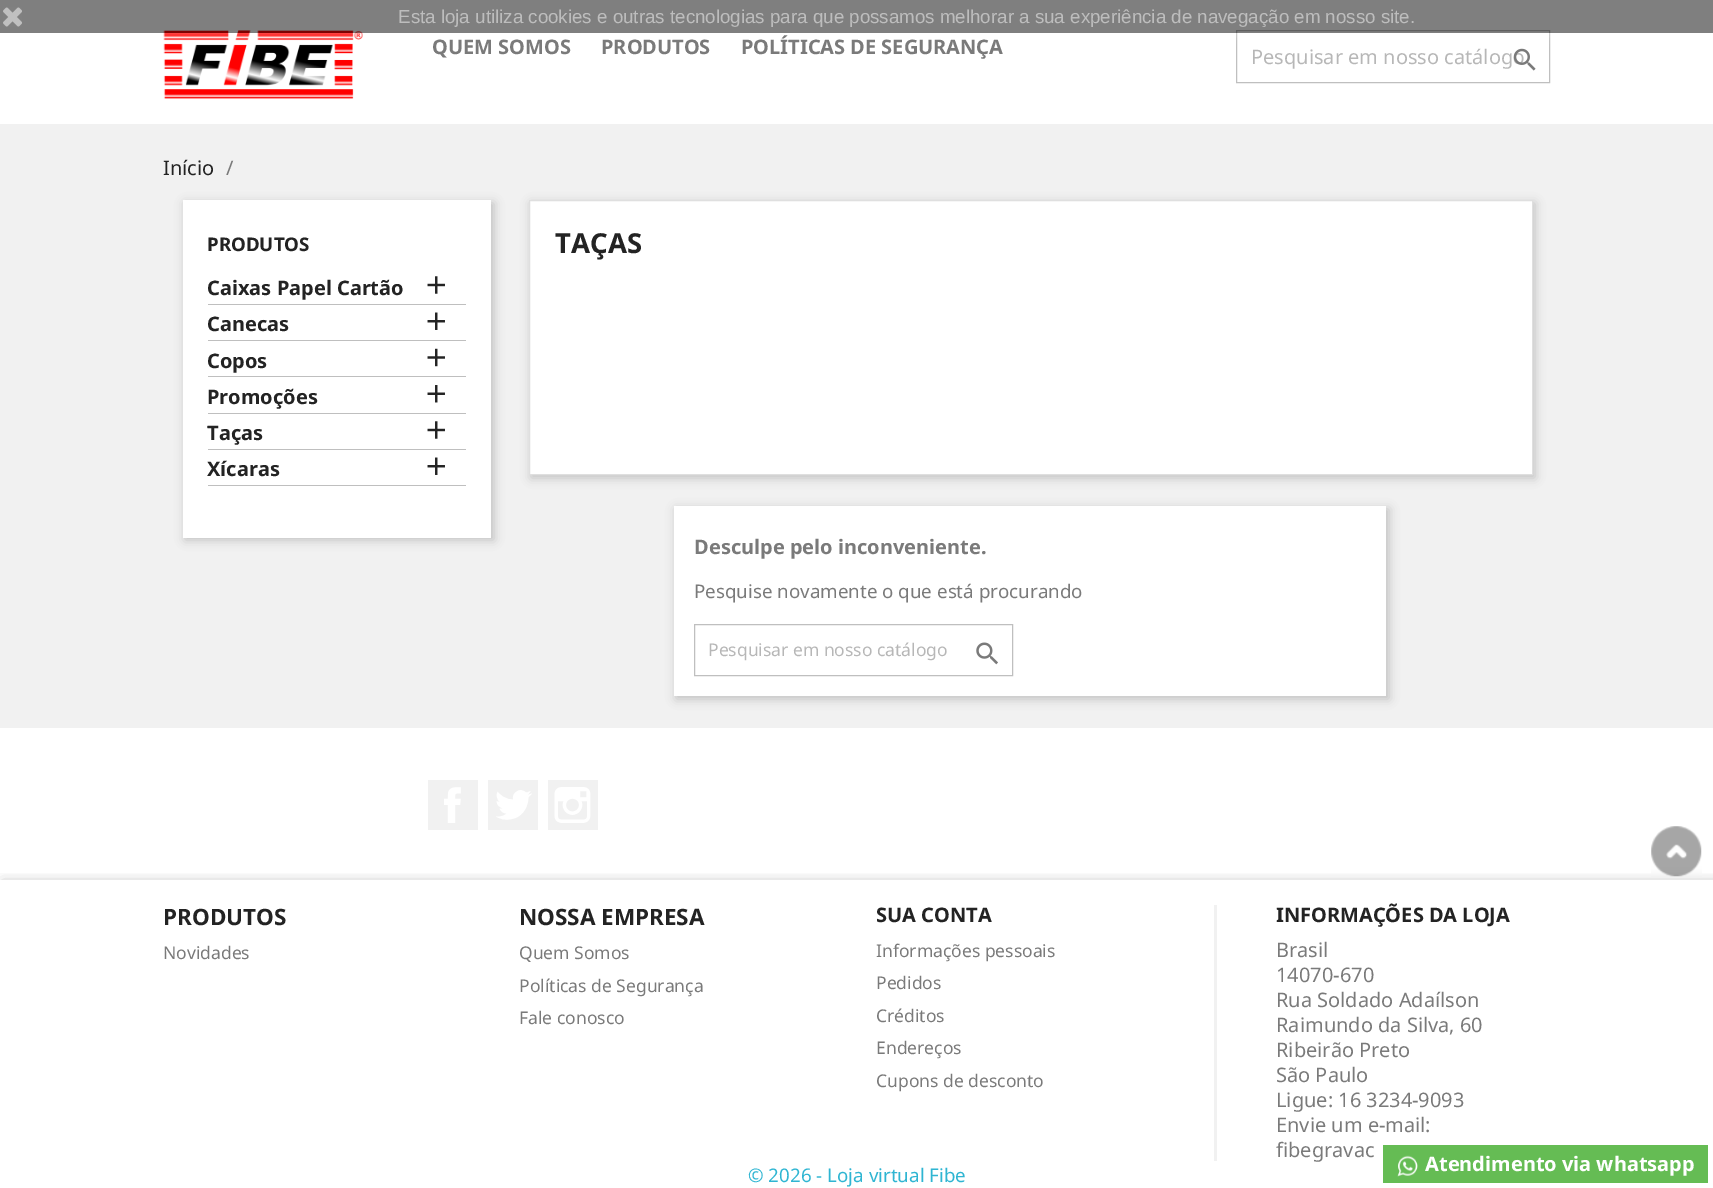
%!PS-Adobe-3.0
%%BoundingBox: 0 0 1713 1188
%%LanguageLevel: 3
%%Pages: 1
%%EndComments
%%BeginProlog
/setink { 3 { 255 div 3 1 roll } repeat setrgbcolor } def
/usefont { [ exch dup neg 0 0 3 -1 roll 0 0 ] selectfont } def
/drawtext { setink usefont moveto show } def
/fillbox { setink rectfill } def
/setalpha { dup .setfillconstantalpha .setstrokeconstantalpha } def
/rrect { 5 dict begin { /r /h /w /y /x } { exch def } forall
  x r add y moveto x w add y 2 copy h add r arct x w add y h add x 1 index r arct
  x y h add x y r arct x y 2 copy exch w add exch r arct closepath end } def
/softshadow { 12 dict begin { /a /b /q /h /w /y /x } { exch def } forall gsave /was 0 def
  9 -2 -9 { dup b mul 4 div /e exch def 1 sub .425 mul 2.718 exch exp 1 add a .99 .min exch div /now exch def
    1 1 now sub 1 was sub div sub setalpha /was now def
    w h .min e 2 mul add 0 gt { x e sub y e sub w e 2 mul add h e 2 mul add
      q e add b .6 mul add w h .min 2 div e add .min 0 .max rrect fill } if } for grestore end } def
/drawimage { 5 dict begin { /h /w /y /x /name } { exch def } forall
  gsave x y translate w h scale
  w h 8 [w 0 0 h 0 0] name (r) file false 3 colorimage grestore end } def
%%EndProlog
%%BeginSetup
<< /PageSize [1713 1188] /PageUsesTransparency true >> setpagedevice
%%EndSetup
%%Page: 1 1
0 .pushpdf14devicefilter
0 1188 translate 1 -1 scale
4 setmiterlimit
0 0 1713 1188 255 255 255 fillbox
gsave
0 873 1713 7 rectclip
0 0 0 setink
3 883 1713 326 0 7 0.3 softshadow
grestore
(assets/img7.rgb) 163 30 200 69 drawimage
191 191 191 setink
1236.5 30.5 313 52 rectstroke
(Pesquisar em nosso catálogo) 1251 64 /NotoSans-Regular 20 183 183 183 drawtext
(assets/img8.rgb) 1513 48 23 23 drawimage
gsave
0 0 moveto 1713 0 lineto 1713 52 lineto 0 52 lineto closepath 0 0 moveto 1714 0 lineto 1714 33 lineto 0 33 lineto closepath eoclip newpath
255 255 255 setink
0 0 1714 33 0 6 0.5 softshadow
grestore
0.5 setalpha
0 0 1713 33 0 0 0 fillbox
1 setalpha
(assets/img1.rgb) 3 7 19 20 drawimage
(Esta loja utiliza cookies e outras tecnologias para que possamos melhorar a sua experiência de navegação em nosso site.) 398 23 /LiberationSans-Regular 18.75 189 189 189 drawtext
(assets/img2.rgb) 1651 826 51 51 drawimage
(PRODUTOS) 163 925 /NotoSans-Bold 22.5 35 35 35 drawtext
(Novidades) 163 959 /NotoSans-Regular 17.5 122 122 122 drawtext
(NOSSA EMPRESA) 519 925 /NotoSans-Bold 22.5 35 35 35 drawtext
(Quem Somos) 519 959 /NotoSans-Regular 17.5 122 122 122 drawtext
(Políticas de Segurança) 519 992 /NotoSans-Regular 17.5 122 122 122 drawtext
(Fale conosco) 519 1024 /NotoSans-Regular 17.5 122 122 122 drawtext
(SUA CONTA) 876 922 /NotoSans-Bold 20 35 35 35 drawtext
(Informações pessoais) 876 957 /NotoSans-Regular 17.5 122 122 122 drawtext
(Pedidos) 876 989 /NotoSans-Regular 17.5 122 122 122 drawtext
(Créditos) 876 1022 /NotoSans-Regular 17.5 122 122 122 drawtext
(Endereços) 876 1054 /NotoSans-Regular 17.5 122 122 122 drawtext
(Cupons de desconto) 876 1087 /NotoSans-Regular 17.5 122 122 122 drawtext
1214 905 3 256 241 241 241 fillbox
(INFORMAÇÕES DA LOJA) 1276 922 /NotoSans-Bold 20 35 35 35 drawtext
(Brasil) 1276 957 /NotoSans-Regular 20 122 122 122 drawtext
(14070-670) 1276 982 /NotoSans-Regular 20 122 122 122 drawtext
(Rua Soldado Adaílson) 1276 1007 /NotoSans-Regular 20 122 122 122 drawtext
(Raimundo da Silva, 60) 1276 1032 /NotoSans-Regular 20 122 122 122 drawtext
(Ribeirão Preto) 1276 1057 /NotoSans-Regular 20 122 122 122 drawtext
(São Paulo) 1276 1082 /NotoSans-Regular 20 122 122 122 drawtext
(Ligue: 16 3234-9093) 1276 1107 /NotoSans-Regular 20 122 122 122 drawtext
(Envie um e-mail:) 1276 1132 /NotoSans-Regular 20 122 122 122 drawtext
(fibegravac) 1276 1157 /NotoSans-Regular 20 122 122 122 drawtext
1383 1145 325 38 101 188 84 fillbox
(assets/img3.rgb) 1397 1155 21 22 drawimage
(Atendimento via whatsapp) 1425 1171 /NotoSans-Bold 20 255 255 255 drawtext
(© 2026 - Loja virtual Fibe) 748 1182 /NotoSans-Regular 18.75 47 181 210 drawtext
428 780 50 50 241 241 241 fillbox
(assets/img4.rgb) 444 787 17 36 drawimage
488 780 50 50 241 241 241 fillbox
(assets/img5.rgb) 496 790 36 30 drawimage
548 780 50 50 241 241 241 fillbox
(assets/img6.rgb) 554 787 37 36 drawimage
(QUEM SOMOS) 432 54 /NotoSans-Bold 20 122 122 122 drawtext
(PRODUTOS) 601 54 /NotoSans-Bold 20 122 122 122 drawtext
(POLÍTICAS DE SEGURANÇA) 741 54 /NotoSans-Bold 20 122 122 122 drawtext
0 124 1713 604 241 241 241 fillbox
(Início) 163 175 /NotoSans-Regular 20 35 35 35 drawtext
(/) 226 175 /NotoSans-Regular 20 122 122 122 drawtext
0 0 0 setink
185 203 309 337 0 5 0.2 softshadow
183 200 308 338 255 255 255 fillbox
(PRODUTOS) 207 251 /NotoSans-Bold 18.75 35 35 35 drawtext
208 304 258 1 191 191 191 fillbox
(Caixas Papel Cartão) 207 295 /NotoSans-Bold 20 35 35 35 drawtext
(assets/img9.rgb) 427 276 18 18 drawimage
208 340 258 1 191 191 191 fillbox
(Canecas) 207 331 /NotoSans-Bold 20 35 35 35 drawtext
(assets/img10.rgb) 427 312 18 18 drawimage
208 376 258 1 191 191 191 fillbox
(Copos) 207 368 /NotoSans-Bold 20 35 35 35 drawtext
(assets/img11.rgb) 427 348 18 19 drawimage
208 413 258 1 191 191 191 fillbox
(Promoções) 207 404 /NotoSans-Bold 20 35 35 35 drawtext
(assets/img12.rgb) 427 385 18 18 drawimage
208 449 258 1 191 191 191 fillbox
(Taças) 207 440 /NotoSans-Bold 20 35 35 35 drawtext
(assets/img9.rgb) 427 421 18 18 drawimage
208 485 258 1 191 191 191 fillbox
(Xícaras) 207 476 /NotoSans-Bold 20 35 35 35 drawtext
(assets/img10.rgb) 427 457 18 18 drawimage
0 0 0 setink
531 203 1004 275 0 5 0.2 softshadow
255 255 255 setink
529.5 200.5 moveto 1532.5 200.5 lineto 1532.5 474.5 lineto 529.5 474.5 lineto closepath gsave fill grestore
223 223 223 setink
stroke
(TAÇAS) 555 253 /NotoSans-Bold 27.5 35 35 35 drawtext
0 0 0 setink
676 509 713 190 0 5 0.2 softshadow
674 506 712 190 255 255 255 fillbox
(Desculpe pelo inconveniente.) 694 554 /NotoSans-Bold 20 122 122 122 drawtext
(Pesquise novamente o que está procurando) 694 598 /NotoSans-Regular 18.75 122 122 122 drawtext
191 191 191 setink
694.5 624.5 318 51 rectstroke
(Pesquisar em nosso catálogo) 708 656 /NotoSans-Regular 17.5 183 183 183 drawtext
(assets/img13.rgb) 976 642 22 23 drawimage
.poppdf14devicefilter showpage
%%EOF
